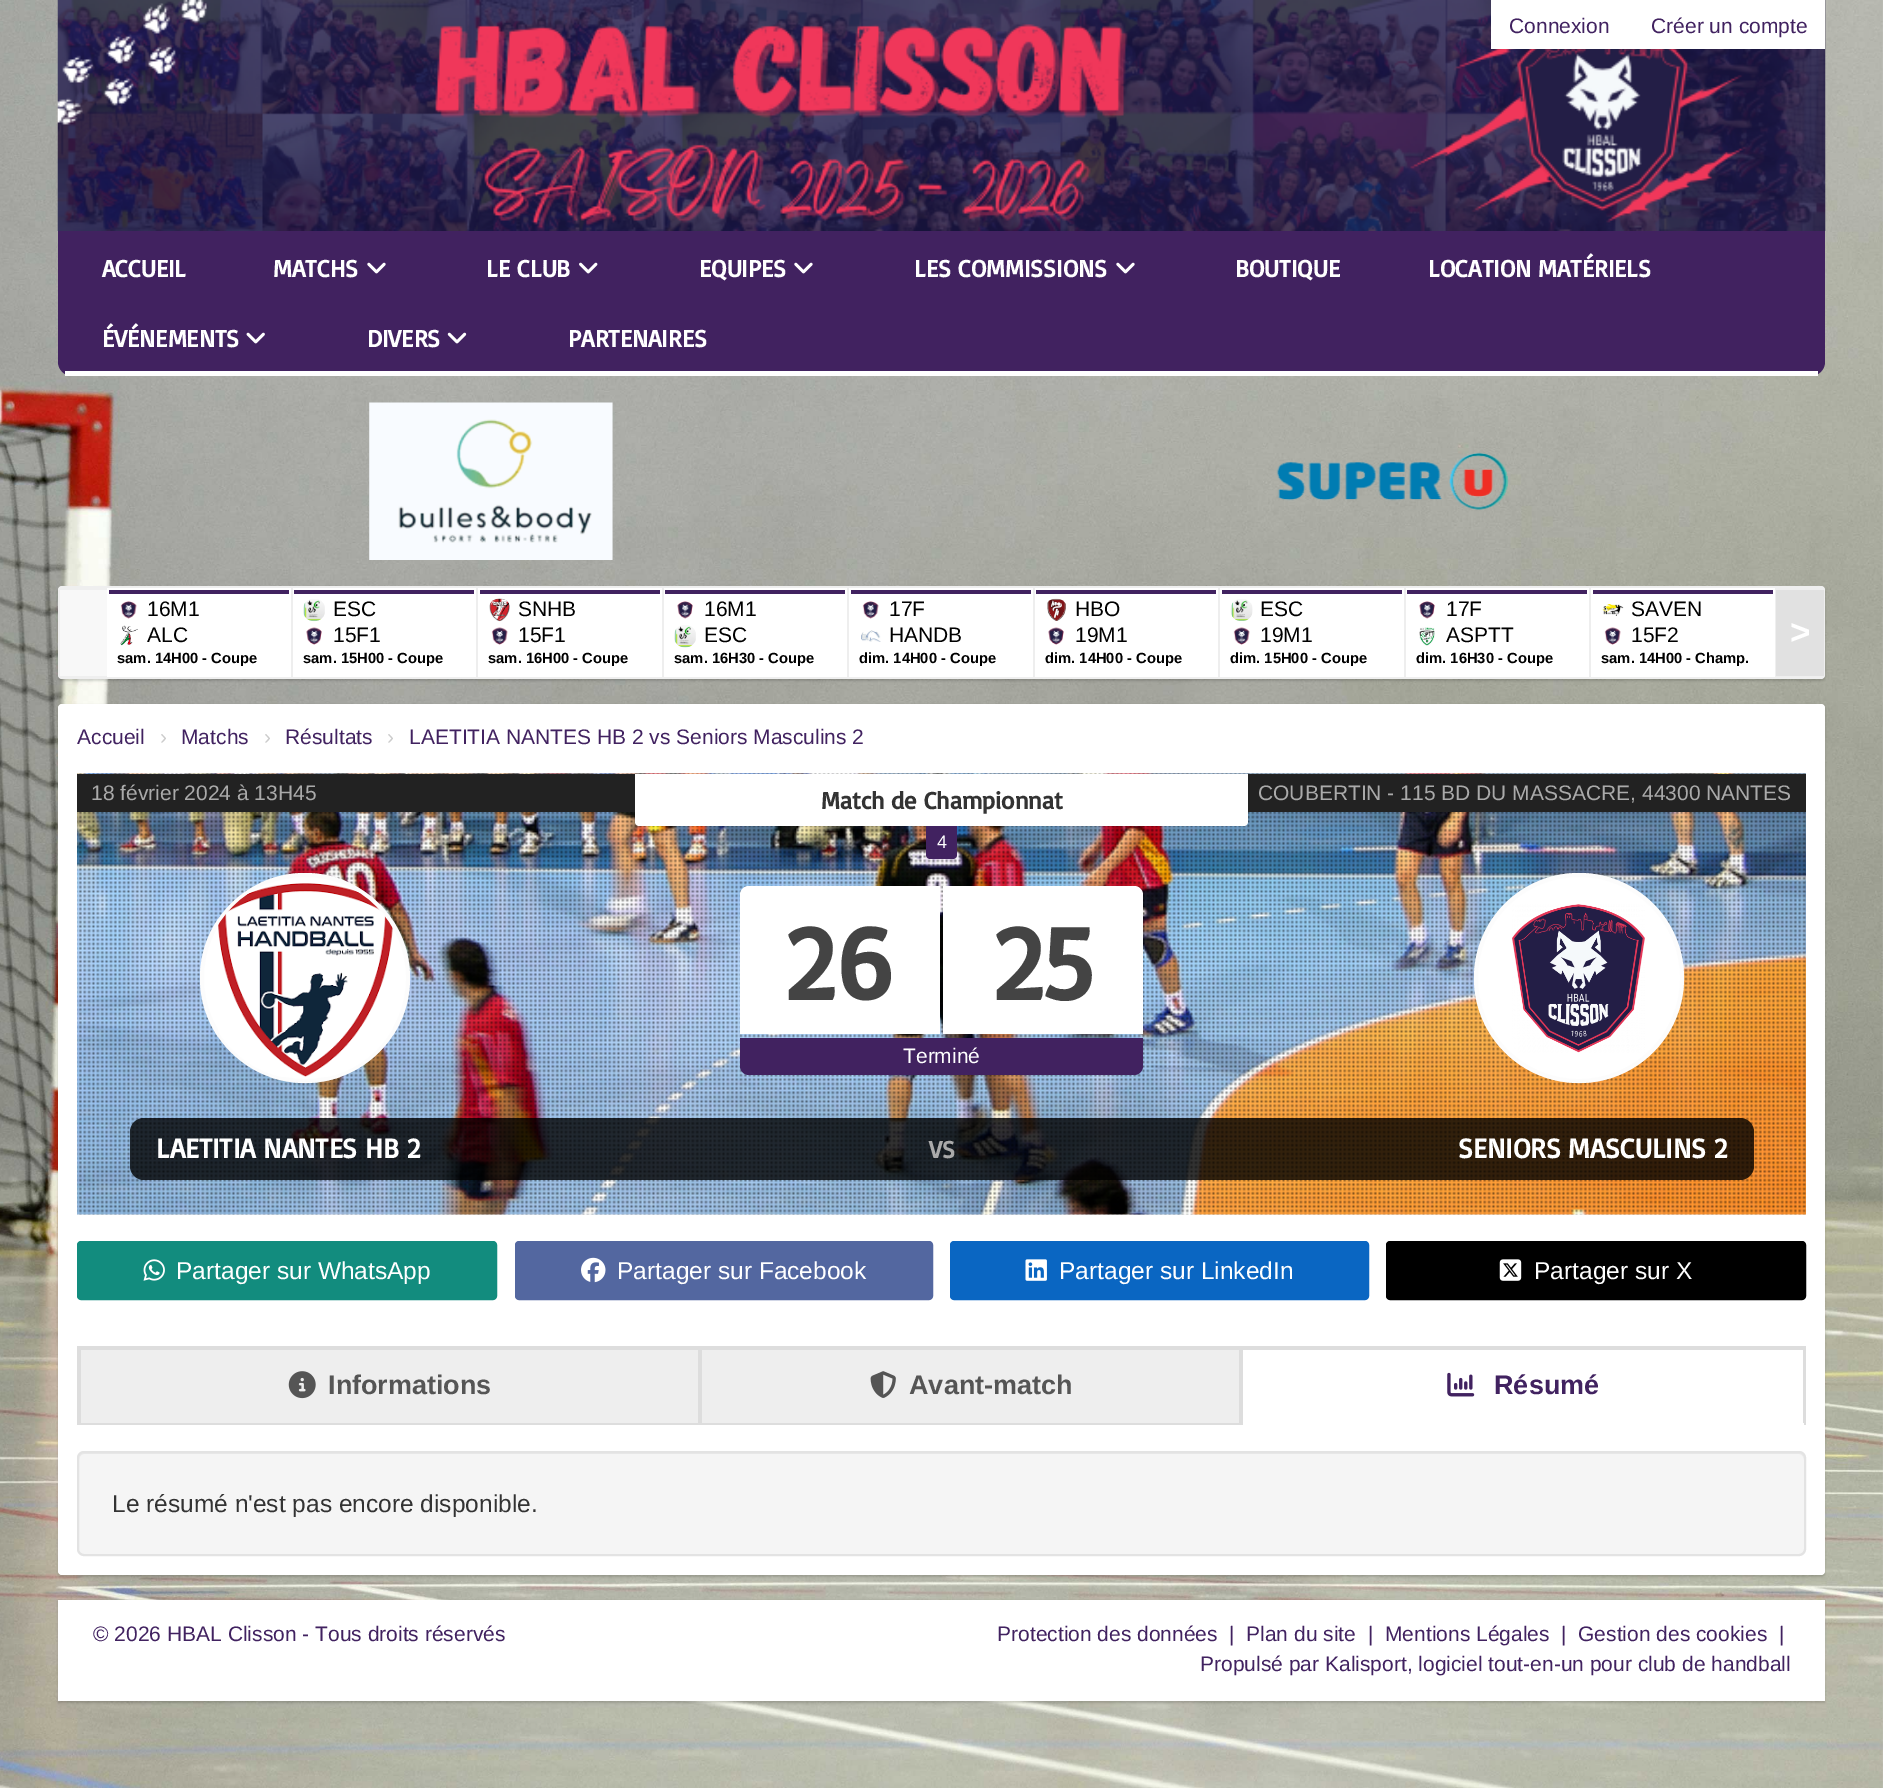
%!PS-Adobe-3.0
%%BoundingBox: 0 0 1883 1788
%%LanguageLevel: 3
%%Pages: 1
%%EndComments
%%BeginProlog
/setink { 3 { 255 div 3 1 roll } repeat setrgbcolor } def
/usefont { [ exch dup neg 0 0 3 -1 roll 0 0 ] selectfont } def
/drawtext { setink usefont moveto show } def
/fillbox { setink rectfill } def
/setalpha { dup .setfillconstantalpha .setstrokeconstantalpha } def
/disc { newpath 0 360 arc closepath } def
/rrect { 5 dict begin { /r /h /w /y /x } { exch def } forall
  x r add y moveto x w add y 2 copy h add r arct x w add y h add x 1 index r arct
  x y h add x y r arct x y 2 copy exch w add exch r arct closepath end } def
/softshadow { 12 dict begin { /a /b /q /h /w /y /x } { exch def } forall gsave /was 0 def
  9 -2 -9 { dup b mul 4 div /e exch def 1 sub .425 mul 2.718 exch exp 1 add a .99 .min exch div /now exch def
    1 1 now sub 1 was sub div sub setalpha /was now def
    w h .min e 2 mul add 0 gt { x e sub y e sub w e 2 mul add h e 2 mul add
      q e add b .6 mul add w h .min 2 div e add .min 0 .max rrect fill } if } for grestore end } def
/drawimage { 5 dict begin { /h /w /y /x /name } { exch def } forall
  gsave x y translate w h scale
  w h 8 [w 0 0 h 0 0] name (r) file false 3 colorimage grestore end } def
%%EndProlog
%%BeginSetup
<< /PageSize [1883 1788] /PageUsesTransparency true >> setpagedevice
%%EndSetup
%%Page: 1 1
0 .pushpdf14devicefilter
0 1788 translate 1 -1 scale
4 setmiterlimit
0 0 1883 1788 255 255 255 fillbox
(assets/img1.rgb) 0 0 1883 1788 drawimage
(assets/img2.rgb) 57 0 1769 231 drawimage
1491 0 334 49 255 255 255 fillbox
(Connexion) 1509 33 /LiberationSans-Regular 21 65 34 96 drawtext
(Créer un compte) 1651 33 /LiberationSans-Regular 21 65 34 96 drawtext
58 231 moveto 1825 231 lineto 1825 362 lineto 1825 369.5 1818.5 376 1811 376 curveto 72 376 lineto 64.5 376 58 369.5 58 362 curveto closepath fill
65 371 1753 5 255 255 255 fillbox
(ACCUEIL) 102 277 /Basic-Bold 24.5 255 255 255 drawtext
(MATCHS) 273 277 /Basic-Bold 24.5 255 255 255 drawtext
(assets/img3.rgb) 367 262 19 12 drawimage
(LE CLUB) 486 277 /Basic-Bold 24.5 255 255 255 drawtext
(assets/img4.rgb) 579 262 19 12 drawimage
(EQUIPES) 699 277 /Basic-Bold 24.5 255 255 255 drawtext
(assets/img3.rgb) 794 262 19 12 drawimage
(LES COMMISSIONS) 914 277 /Basic-Bold 24.5 255 255 255 drawtext
(assets/img3.rgb) 1116 262 19 12 drawimage
(BOUTIQUE) 1235 277 /Basic-Bold 24.5 255 255 255 drawtext
(LOCATION MATÉRIELS) 1428 277 /Basic-Bold 24.5 255 255 255 drawtext
(ÉVÉNEMENTS) 102 347 /Basic-Bold 24.5 255 255 255 drawtext
(assets/img5.rgb) 246 332 19 12 drawimage
(DIVERS) 367 347 /Basic-Bold 24.5 255 255 255 drawtext
(assets/img6.rgb) 447 332 20 12 drawimage
(PARTENAIRES) 568 347 /Basic-Bold 24.5 255 255 255 drawtext
(assets/img7.rgb) 369 402 244 158 drawimage
(assets/img8.rgb) 1276 452 233 58 drawimage
0 0 0 setink
58 588 1767 93 4 1 0.15 softshadow
239 239 239 setink
58 586 1767 93 4 rrect fill
107 588 1668 89 255 255 255 fillbox
291 588 2 89 238 238 238 fillbox
109 590 180 4 65 34 96 fillbox
(assets/img9.rgb) 120 601 17 18 drawimage
(16M1) 147 616 /LiberationSans-Regular 21 0 0 0 drawtext
(assets/img10.rgb) 120 625 18 21 drawimage
(ALC) 147 642 /LiberationSans-Regular 21 0 0 0 drawtext
(sam. 14H00 - Coupe) 117 663 /LiberationSans-Bold 14.75 0 0 0 drawtext
476 588 2 89 238 238 238 fillbox
294 590 180 4 65 34 96 fillbox
(assets/img11.rgb) 303 599 22 23 drawimage
(ESC) 333 616 /LiberationSans-Regular 21 0 0 0 drawtext
(assets/img12.rgb) 306 627 16 18 drawimage
(15F1) 333 642 /LiberationSans-Regular 21 0 0 0 drawtext
(sam. 15H00 - Coupe) 303 663 /LiberationSans-Bold 14.75 0 0 0 drawtext
662 588 2 89 238 238 238 fillbox
480 590 180 4 65 34 96 fillbox
(assets/img13.rgb) 489 598 21 24 drawimage
(SNHB) 518 616 /LiberationSans-Regular 21 0 0 0 drawtext
(assets/img14.rgb) 491 627 17 18 drawimage
(15F1) 518 642 /LiberationSans-Regular 21 0 0 0 drawtext
(sam. 16H00 - Coupe) 488 663 /LiberationSans-Bold 14.75 0 0 0 drawtext
847 588 2 89 238 238 238 fillbox
665 590 180 4 65 34 96 fillbox
(assets/img15.rgb) 677 601 16 18 drawimage
(16M1) 704 616 /LiberationSans-Regular 21 0 0 0 drawtext
(assets/img16.rgb) 674 625 22 23 drawimage
(ESC) 704 642 /LiberationSans-Regular 21 0 0 0 drawtext
(sam. 16H30 - Coupe) 674 663 /LiberationSans-Bold 14.75 0 0 0 drawtext
1033 588 2 89 238 238 238 fillbox
851 590 180 4 65 34 96 fillbox
(assets/img9.rgb) 862 601 17 18 drawimage
(17F) 889 616 /LiberationSans-Regular 21 0 0 0 drawtext
(assets/img17.rgb) 861 630 20 12 drawimage
(HANDB) 889 642 /LiberationSans-Regular 21 0 0 0 drawtext
(dim. 14H00 - Coupe) 859 663 /LiberationSans-Bold 14.75 0 0 0 drawtext
1218 588 2 89 238 238 238 fillbox
1036 590 180 4 65 34 96 fillbox
(assets/img18.rgb) 1047 598 19 23 drawimage
(HBO) 1075 616 /LiberationSans-Regular 21 0 0 0 drawtext
(assets/img12.rgb) 1048 627 16 18 drawimage
(19M1) 1075 642 /LiberationSans-Regular 21 0 0 0 drawtext
(dim. 14H00 - Coupe) 1045 663 /LiberationSans-Bold 14.75 0 0 0 drawtext
1404 588 2 89 238 238 238 fillbox
1222 590 180 4 65 34 96 fillbox
(assets/img19.rgb) 1230 599 23 22 drawimage
(ESC) 1260 616 /LiberationSans-Regular 21 0 0 0 drawtext
(assets/img14.rgb) 1233 627 17 18 drawimage
(19M1) 1260 642 /LiberationSans-Regular 21 0 0 0 drawtext
(dim. 15H00 - Coupe) 1230 663 /LiberationSans-Bold 14.75 0 0 0 drawtext
1589 588 2 89 238 238 238 fillbox
1407 590 180 4 65 34 96 fillbox
(assets/img15.rgb) 1419 601 16 18 drawimage
(17F) 1446 616 /LiberationSans-Regular 21 0 0 0 drawtext
(assets/img20.rgb) 1419 627 16 19 drawimage
(ASPTT) 1446 642 /LiberationSans-Regular 21 0 0 0 drawtext
(dim. 16H30 - Coupe) 1416 663 /LiberationSans-Bold 14.75 0 0 0 drawtext
1593 590 180 4 65 34 96 fillbox
(assets/img21.rgb) 1602 604 22 12 drawimage
(SAVEN) 1631 616 /LiberationSans-Regular 21 0 0 0 drawtext
(assets/img14.rgb) 1604 627 17 18 drawimage
(15F2) 1631 642 /LiberationSans-Regular 21 0 0 0 drawtext
(sam. 14H00 - Champ.) 1601 663 /LiberationSans-Bold 14.75 0 0 0 drawtext
60 590 47 86 248 248 248 fillbox
1776 590 48 86 225 225 225 fillbox
(>) 1790 644 /LiberationSans-Bold 35 255 255 255 drawtext
0 0 0 setink
58 705 1767 872 4 1 0.15 softshadow
255 255 255 setink
58 704 1767 871 4 rrect fill
(Accueil) 77 744 /LiberationSans-Regular 21 65 34 96 drawtext
(›) 160 744 /LiberationSans-Regular 21 204 204 204 drawtext
(Matchs) 181 744 /LiberationSans-Regular 21 65 34 96 drawtext
(›) 264 744 /LiberationSans-Regular 21 204 204 204 drawtext
(Résultats) 285 744 /LiberationSans-Regular 21 65 34 96 drawtext
(›) 387 744 /LiberationSans-Regular 21 204 204 204 drawtext
(LAETITIA NANTES HB 2 vs Seniors Masculins 2) 409 744 /LiberationSans-Regular 21 65 34 96 drawtext
(assets/img22.rgb) 77 773 1729 442 drawimage
(assets/img23.rgb) 77 773 1729 442 drawimage
77 774 1729 38 34 34 34 fillbox
(18 février 2024 à 13H45) 91 800 /LiberationSans-Regular 21 170 170 170 drawtext
255 255 255 setink
635 774 moveto 1248 774 lineto 1248 822 lineto 1248 824 1246 826 1244 826 curveto 639 826 lineto 637 826 635 824 635 822 curveto closepath fill
(Match de Championnat) 821 809 /Basic-Bold 24.5 51 51 51 drawtext
(COUBERTIN - 115 BD DU MASSACRE, 44300 NANTES) 1258 800 /LiberationSans-Regular 21 170 170 170 drawtext
65 34 96 setink
926 826 moveto 957 826 lineto 957 855 lineto 957 857 955 859 953 859 curveto 930 859 lineto 928 859 926 857 926 855 curveto closepath fill
(4) 937 848 /LiberationSans-Regular 18 255 255 255 drawtext
305 978 105 disc fill
0.5 setalpha
250 250 250 setink
4 setlinewidth
305 978 103 disc stroke
1 setalpha
(assets/img24.rgb) 218 883 175 194 drawimage
255 255 255 setink
749 886 moveto 940 886 lineto 940 1034 lineto 740 1034 lineto 740 895 lineto 740 890 744 886 749 886 curveto closepath fill
(26) 785 1000 /Basic-Bold 105 68 68 68 drawtext
255 255 255 setink
943 886 moveto 1134 886 lineto 1139 886 1143 890 1143 895 curveto 1143 1034 lineto 943 1034 lineto closepath fill
(25) 993 1000 /Basic-Bold 105 68 68 68 drawtext
65 34 96 setink
740 1038 moveto 1143 1038 lineto 1143 1066 lineto 1143 1071 1139 1075 1134 1075 curveto 749 1075 lineto 744 1075 740 1071 740 1066 curveto closepath fill
(Terminé) 903 1063 /LiberationSans-Regular 21 255 255 255 drawtext
1579 978 105 disc fill
0.5 setalpha
250 250 250 setink
1579 978 103 disc stroke
1 setalpha
(assets/img25.rgb) 1512 904 133 149 drawimage
0.8 setalpha
0 0 0 setink
130 1118 1624 62 14 rrect fill
1 setalpha
(LAETITIA NANTES HB 2) 156 1158 /Basic-Bold 28 255 255 255 drawtext
(VS) 929 1158 /Basic-Bold 24.5 170 170 170 drawtext
(SENIORS MASCULINS 2) 1458 1158 /Basic-Bold 28 255 255 255 drawtext
18 140 126 setink
78 1242 418 57 3 rrect gsave fill grestore
2 setlinewidth
stroke
(assets/img26.rgb) 143 1259 22 22 drawimage
(Partager sur WhatsApp) 176 1279 /LiberationSans-Regular 24.5 255 255 255 drawtext
83 103 160 setink
516 1242 416 57 3 rrect gsave fill grestore
stroke
(assets/img27.rgb) 581 1257 25 26 drawimage
(Partager sur Facebook) 617 1279 /LiberationSans-Regular 24.5 255 255 255 drawtext
10 102 194 setink
951 1242 417 57 3 rrect gsave fill grestore
stroke
(assets/img28.rgb) 1025 1259 22 22 drawimage
(Partager sur LinkedIn) 1059 1279 /LiberationSans-Regular 24.5 255 255 255 drawtext
0 0 0 setink
1387 1242 418 57 3 rrect gsave fill grestore
stroke
(assets/img29.rgb) 1499 1259 23 22 drawimage
(Partager sur X) 1534 1279 /LiberationSans-Regular 24.5 255 255 255 drawtext
1805 1346 1 79 221 221 221 fillbox
77 1346 2 79 221 221 221 fillbox
81 1350 617 73 238 238 238 fillbox
79 1346 1725 4 221 221 221 fillbox
698 1346 2 79 221 221 221 fillbox
79 1423 621 2 221 221 221 fillbox
79 1346 2 79 221 221 221 fillbox
(assets/img30.rgb) 288 1371 28 28 drawimage
(Informations) 328 1394 /LiberationSans-Bold 27 85 85 85 drawtext
702 1350 537 73 238 238 238 fillbox
1239 1346 4 79 221 221 221 fillbox
700 1423 541 2 221 221 221 fillbox
700 1346 2 79 221 221 221 fillbox
(assets/img31.rgb) 870 1371 26 27 drawimage
(Avant-match) 909 1394 /LiberationSans-Bold 27 85 85 85 drawtext
1803 1346 2 79 221 221 221 fillbox
1803 1423 1 2 255 255 255 fillbox
(assets/img32.rgb) 1447 1372 28 25 drawimage
(Résumé) 1494 1394 /LiberationSans-Bold 27 65 34 96 drawtext
245 245 245 setink
77 1451 1729 105 7 rrect fill
233 233 233 setink
84 1454 moveto 1799 1454 lineto 1802 1454 1804 1457 1804 1460 curveto 1804 1457 1803 1453 1799 1453 curveto 84 1453 lineto 80 1453 79 1457 79 1460 curveto 79 1457 81 1454 84 1454 curveto closepath fill
227 227 227 setink
78 1452 1727 103 6 rrect stroke
(Le résumé n'est pas encore disponible.) 112 1512 /LiberationSans-Regular 24.5 51 51 51 drawtext
0 0 0 setink
58 1601 1767 102 0 1 0.15 softshadow
58 1600 1767 101 255 255 255 fillbox
(© 2026 HBAL Clisson - Tous droits réservés) 93 1641 /LiberationSans-Regular 21 65 34 96 drawtext
(Protection des données) 997 1641 /LiberationSans-Regular 21 65 34 96 drawtext
(|) 1229 1641 /LiberationSans-Regular 21 65 34 96 drawtext
(Plan du site) 1246 1641 /LiberationSans-Regular 21 65 34 96 drawtext
(|) 1368 1641 /LiberationSans-Regular 21 65 34 96 drawtext
(Mentions Légales) 1385 1641 /LiberationSans-Regular 21 65 34 96 drawtext
(|) 1561 1641 /LiberationSans-Regular 21 65 34 96 drawtext
(Gestion des cookies) 1578 1641 /LiberationSans-Regular 21 65 34 96 drawtext
(|) 1779 1641 /LiberationSans-Regular 21 65 34 96 drawtext
(Propulsé par Kalisport, logiciel tout-en-un pour club de handball) 1200 1671 /LiberationSans-Regular 21 65 34 96 drawtext
.poppdf14devicefilter showpage
%%EOF
